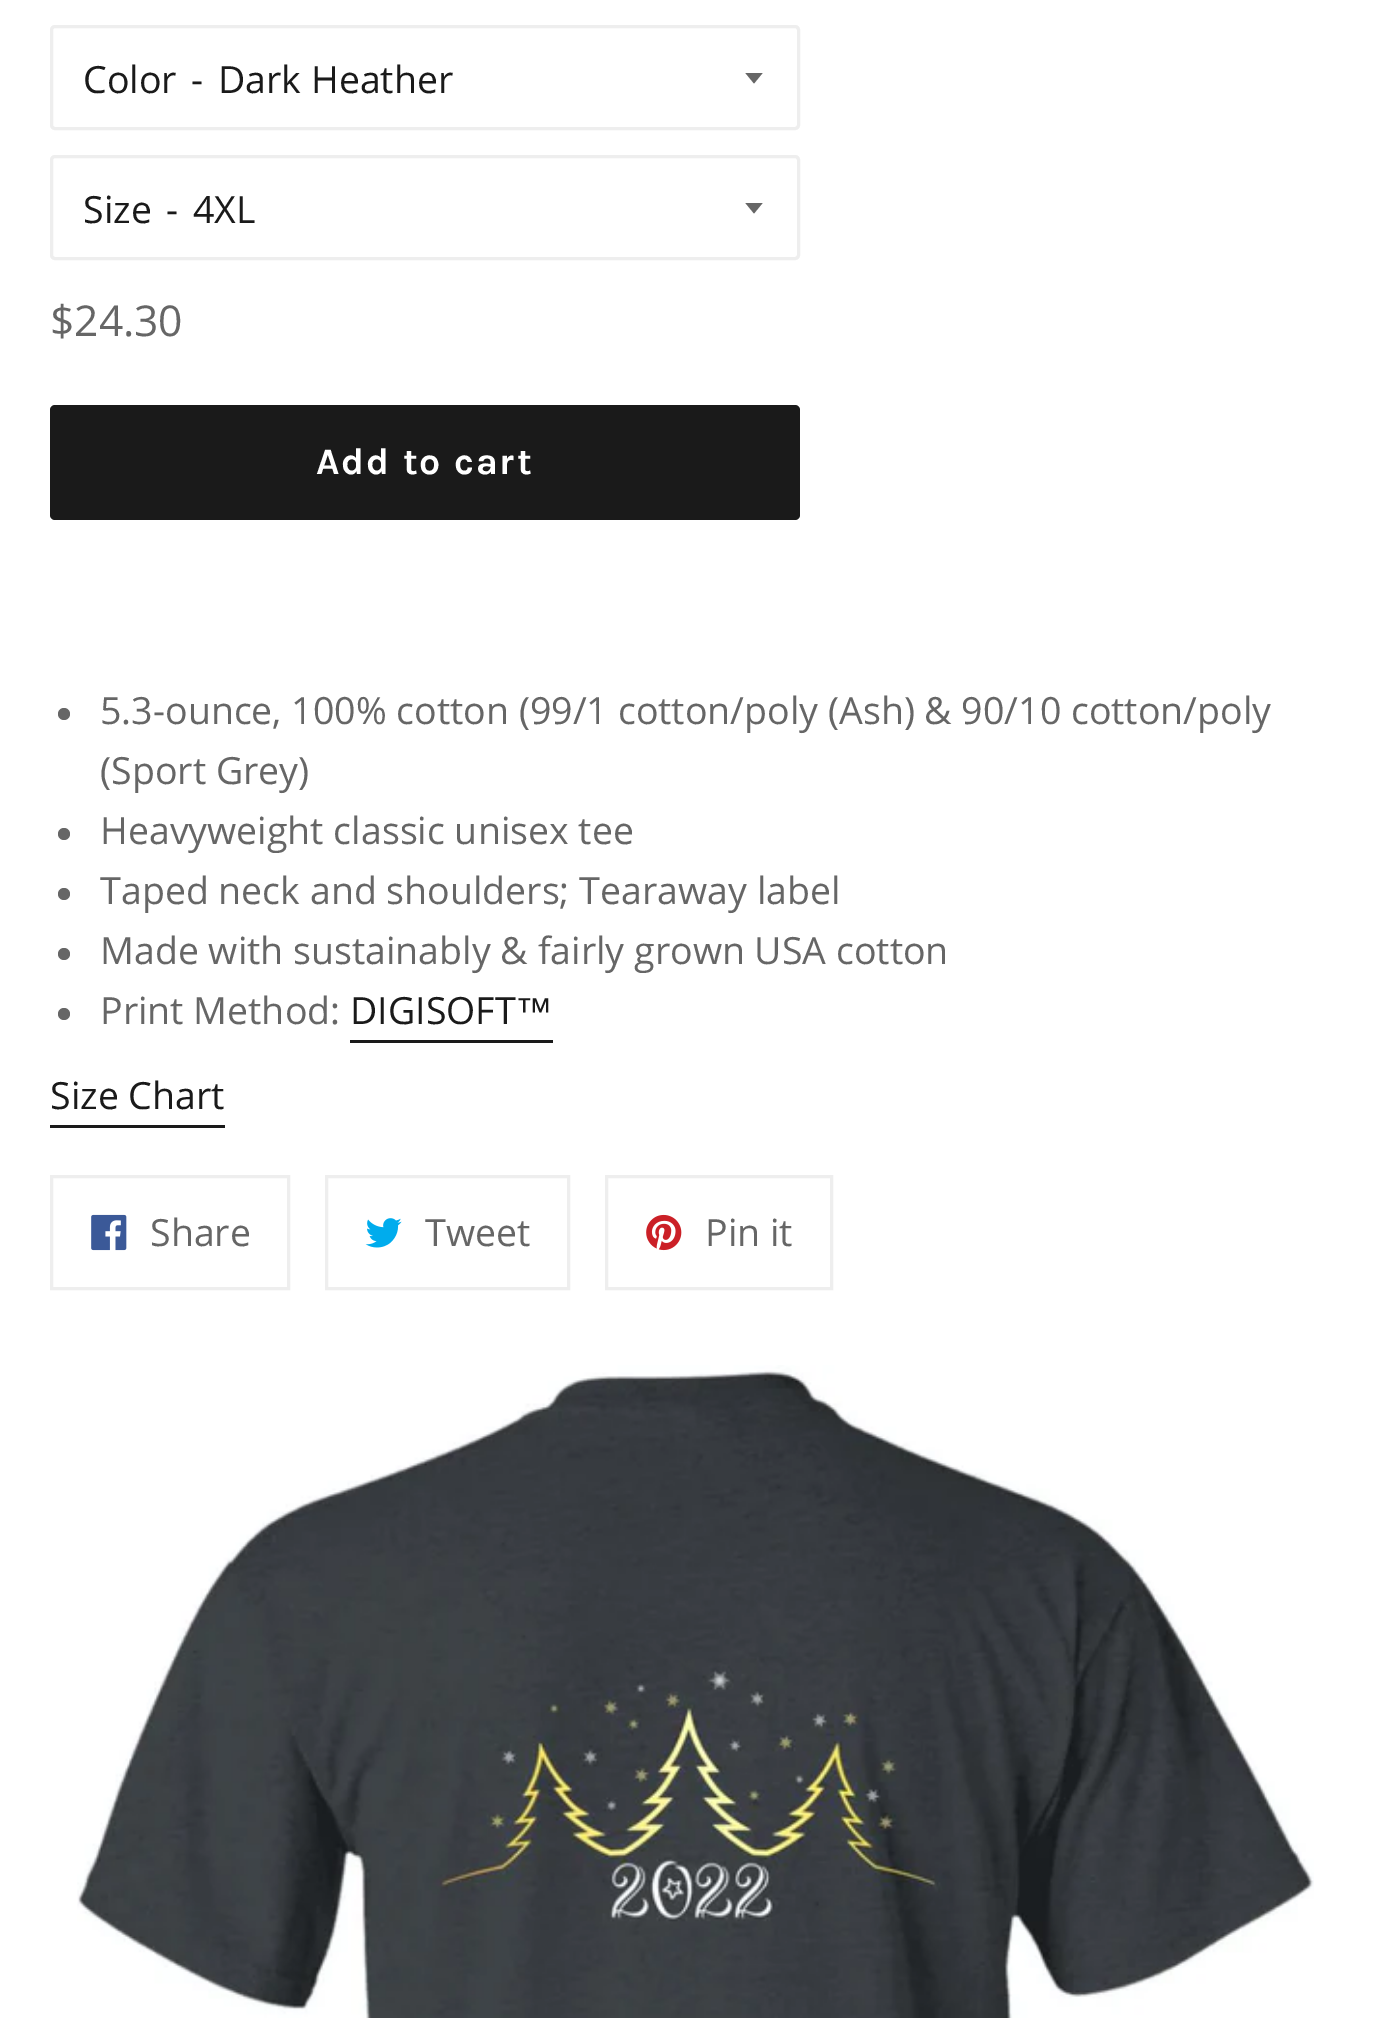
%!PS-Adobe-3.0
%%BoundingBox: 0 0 1390 2018
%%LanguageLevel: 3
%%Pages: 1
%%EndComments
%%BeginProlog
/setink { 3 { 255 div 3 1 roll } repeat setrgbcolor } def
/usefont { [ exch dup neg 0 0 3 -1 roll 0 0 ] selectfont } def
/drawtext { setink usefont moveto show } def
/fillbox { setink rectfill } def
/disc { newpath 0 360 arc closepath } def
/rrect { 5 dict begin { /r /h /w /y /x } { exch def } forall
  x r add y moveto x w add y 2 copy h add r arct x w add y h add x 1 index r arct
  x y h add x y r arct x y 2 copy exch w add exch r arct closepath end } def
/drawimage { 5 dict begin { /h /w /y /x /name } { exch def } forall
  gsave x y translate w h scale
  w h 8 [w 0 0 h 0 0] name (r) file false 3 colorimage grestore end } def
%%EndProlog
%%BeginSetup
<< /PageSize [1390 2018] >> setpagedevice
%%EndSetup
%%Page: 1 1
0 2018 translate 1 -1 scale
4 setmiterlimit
0 0 1390 2018 255 255 255 fillbox
238 238 238 setink
3 setlinewidth
51.5 26.5 747 102 3.5 rrect stroke
(Color) 83 93 /OpenSans-Regular 37.5 26 26 26 drawtext
(-) 191 93 /OpenSans-Regular 37.5 26 26 26 drawtext
gsave
745 73 20 12 rectclip
102 102 102 setink
745 72.5 moveto 754 83.5 lineto 763 72.5 lineto closepath fill
grestore
(Dark Heather) 218 93 /OpenSans-Regular 37.5 26 26 26 drawtext
238 238 238 setink
51.5 156.5 747 102 3.5 rrect stroke
(Size) 83 223 /OpenSans-Regular 37.5 26 26 26 drawtext
(-) 166 223 /OpenSans-Regular 37.5 26 26 26 drawtext
gsave
745 203 20 12 rectclip
102 102 102 setink
745 202.5 moveto 754 213.5 lineto 763 202.5 lineto closepath fill
grestore
(4XL) 193 223 /OpenSans-Regular 37.5 26 26 26 drawtext
($24.30) 50 336 /OpenSans-Regular 42.5 102 102 102 drawtext
26 26 26 setink
50 405 750 115 5 rrect fill
/Karla-Bold 37.5 usefont
255 255 255 setink
316 474 moveto 1.9 0 (Add to cart) ashow
102 102 102 setink
64 714 6 disc fill
(5.3-ounce, 100% cotton \(99/1 cotton/poly \(Ash\) & 90/10 cotton/poly) 100 724 /OpenSans-Regular 37.5 102 102 102 drawtext
(\(Sport Grey\)) 100 784 /OpenSans-Regular 37.5 102 102 102 drawtext
64 834 6 disc fill
(Heavyweight classic unisex tee) 100 844 /OpenSans-Regular 37.5 102 102 102 drawtext
64 894 6 disc fill
(Taped neck and shoulders; Tearaway label) 100 904 /OpenSans-Regular 37.5 102 102 102 drawtext
64 954 6 disc fill
(Made with sustainably & fairly grown USA cotton) 100 964 /OpenSans-Regular 37.5 102 102 102 drawtext
64 1014 6 disc fill
(Print Method:) 100 1024 /OpenSans-Regular 37.5 102 102 102 drawtext
(DIGISOFT) 350 1024 /OpenSans-Regular 37.5 26 26 26 drawtext
350 1040 203 3 26 26 26 fillbox
(™) 515 1024 /LiberationSans-Regular 37.5 26 26 26 drawtext
(Size Chart) 50 1109 /OpenSans-Regular 37.5 26 26 26 drawtext
50 1125 175 3 26 26 26 fillbox
238 238 238 setink
51.5 1176.5 237 112 rectstroke
(assets/img1.rgb) 91 1214 36 37 drawimage
(Share) 150 1246 /OpenSans-Regular 37.5 102 102 102 drawtext
238 238 238 setink
326.5 1176.5 242 112 rectstroke
(assets/img2.rgb) 365 1218 37 30 drawimage
(Tweet) 425 1246 /OpenSans-Regular 37.5 102 102 102 drawtext
238 238 238 setink
606.5 1176.5 225 112 rectstroke
(assets/img3.rgb) 646 1214 36 37 drawimage
(Pin it) 705 1246 /OpenSans-Regular 37.5 102 102 102 drawtext
(assets/img4.rgb) 77 1365 1237 653 drawimage
showpage
%%EOF
